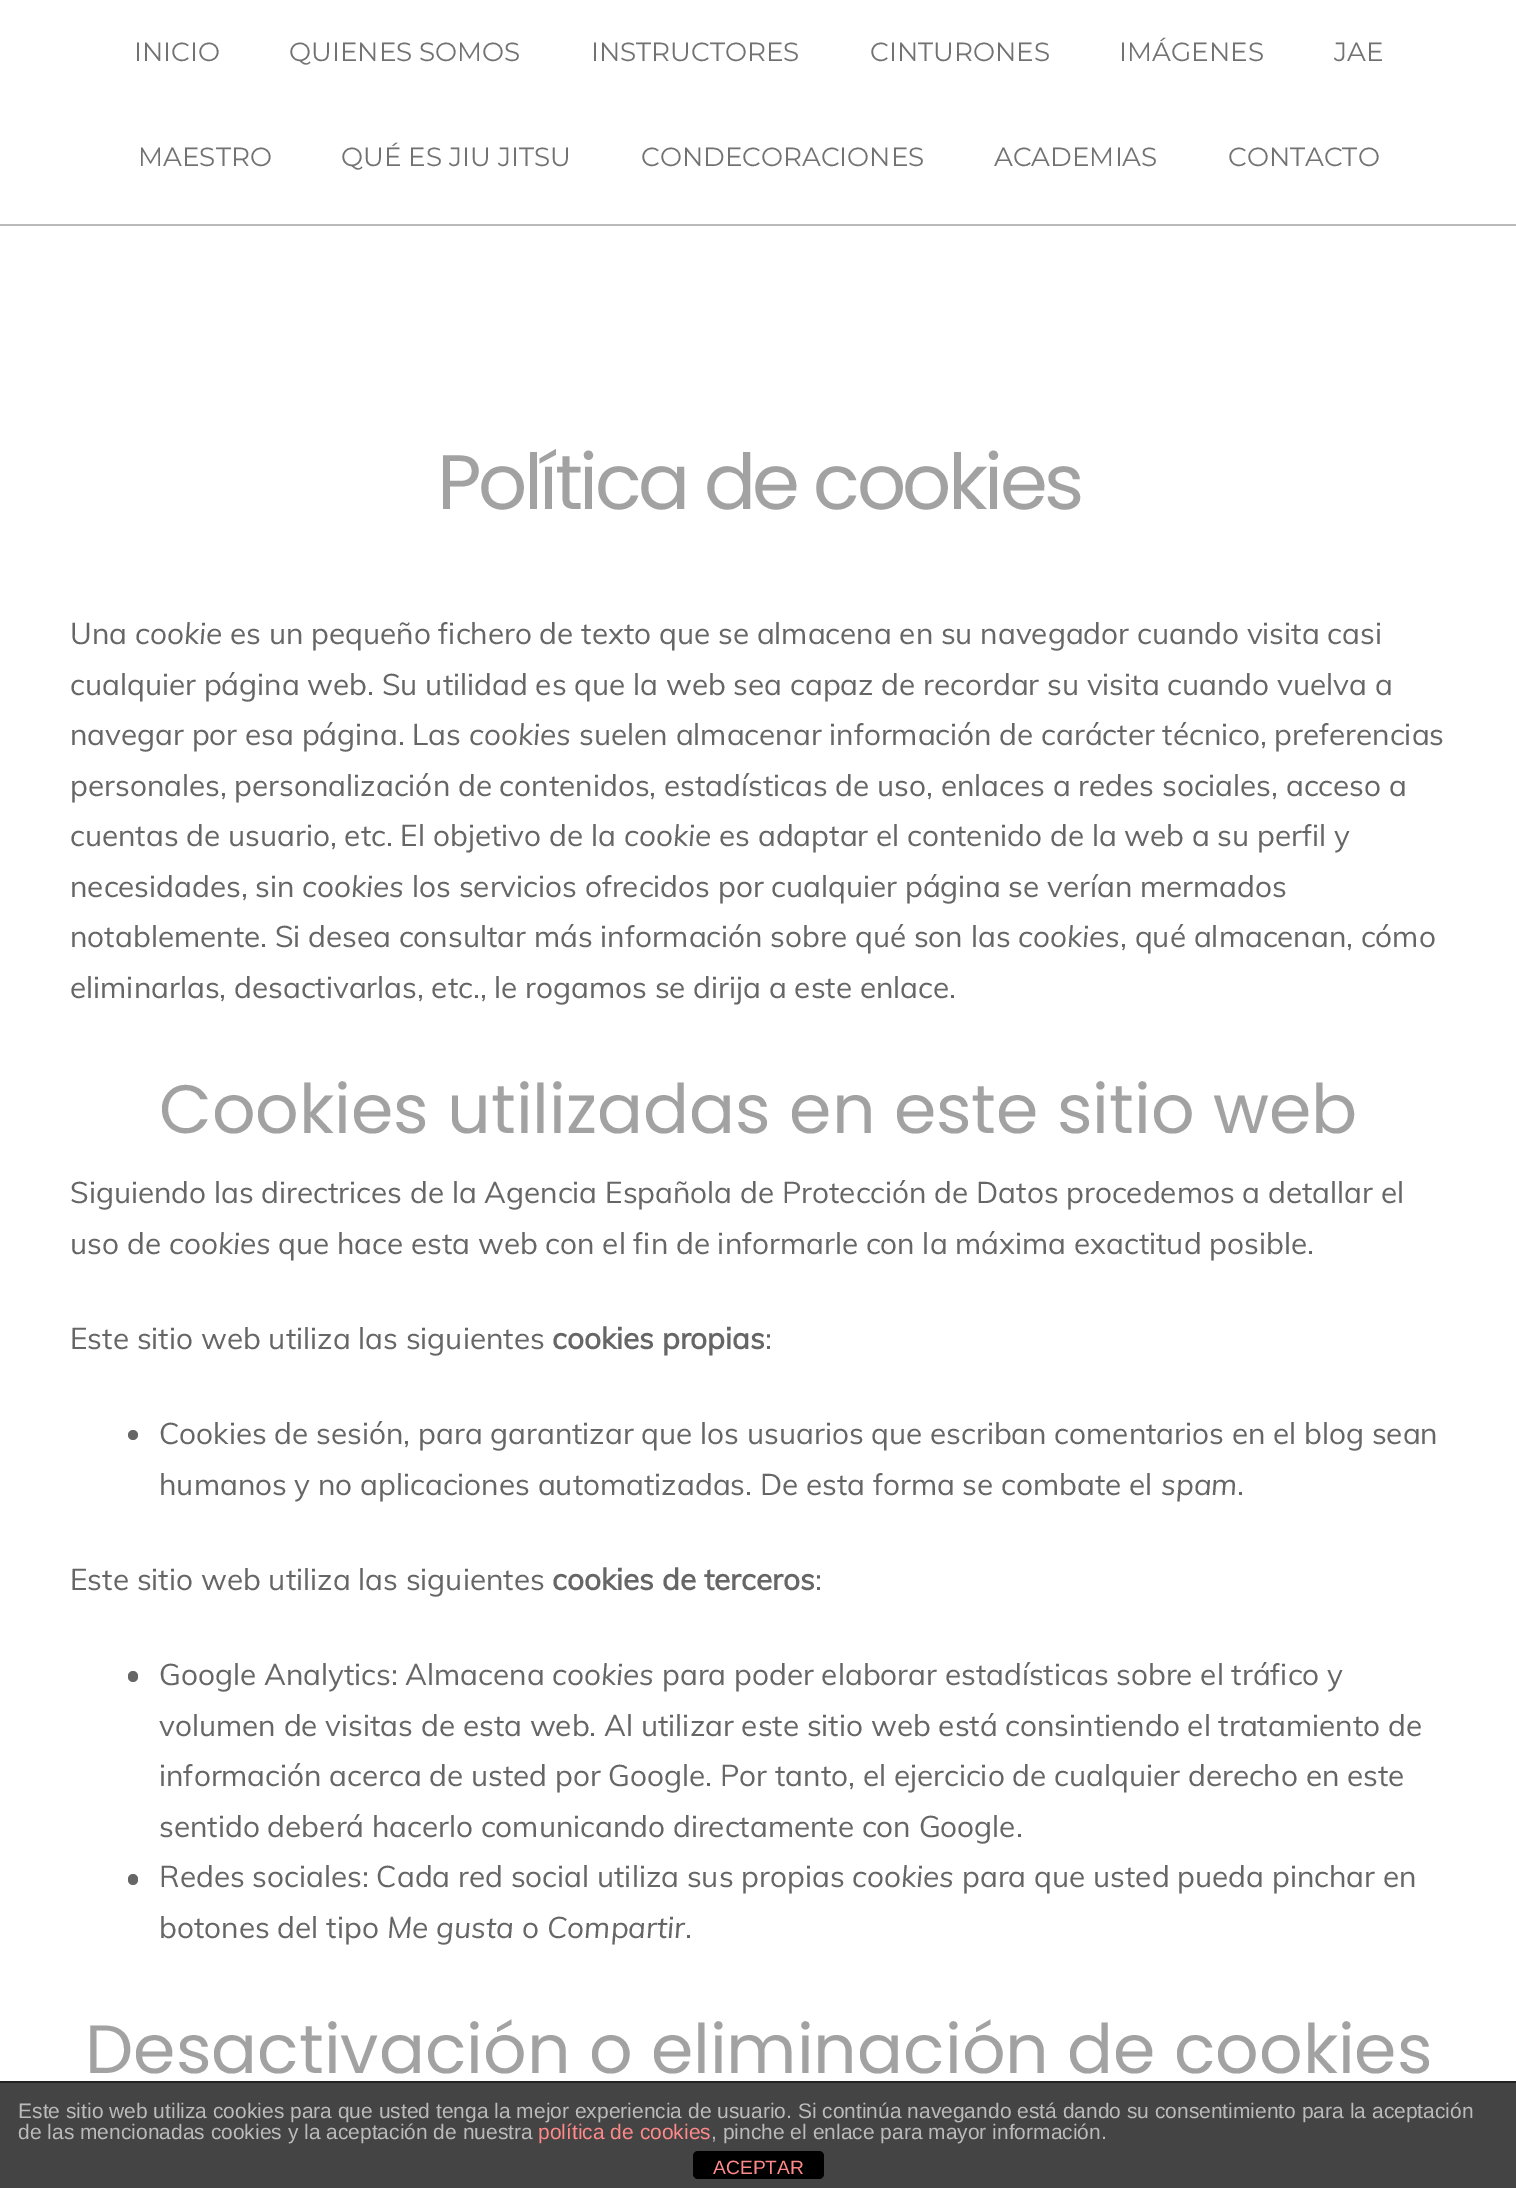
%!PS-Adobe-3.0
%%BoundingBox: 0 0 1516 2188
%%LanguageLevel: 3
%%Pages: 1
%%EndComments
%%BeginProlog
/setink { 3 { 255 div 3 1 roll } repeat setrgbcolor } def
/usefont { [ exch dup neg 0 0 3 -1 roll 0 0 ] selectfont } def
/drawtext { setink usefont moveto show } def
/fillbox { setink rectfill } def
/disc { newpath 0 360 arc closepath } def
/rrect { 5 dict begin { /r /h /w /y /x } { exch def } forall
  x r add y moveto x w add y 2 copy h add r arct x w add y h add x 1 index r arct
  x y h add x y r arct x y 2 copy exch w add exch r arct closepath end } def
%%EndProlog
%%BeginSetup
<< /PageSize [1516 2188] >> setpagedevice
%%EndSetup
%%Page: 1 1
0 2188 translate 1 -1 scale
4 setmiterlimit
0 0 1516 2188 255 255 255 fillbox
0 224 1516 2 186 186 186 fillbox
(INICIO) 134 61 /Montserrat-Regular 26.25 114 114 114 drawtext
(QUIENES SOMOS) 289 61 /Montserrat-Regular 26.25 114 114 114 drawtext
(INSTRUCTORES) 591 61 /Montserrat-Regular 26.25 114 114 114 drawtext
(CINTURONES) 870 61 /Montserrat-Regular 26.25 114 114 114 drawtext
(IMÁGENES) 1119 61 /Montserrat-Regular 26.25 114 114 114 drawtext
(JAE) 1334 61 /Montserrat-Regular 26.25 114 114 114 drawtext
(MAESTRO) 138 166 /Montserrat-Regular 26.25 114 114 114 drawtext
(QUÉ ES JIU JITSU) 341 166 /Montserrat-Regular 26.25 114 114 114 drawtext
(CONDECORACIONES) 641 166 /Montserrat-Regular 26.25 114 114 114 drawtext
(ACADEMIAS) 994 166 /Montserrat-Regular 26.25 114 114 114 drawtext
(CONTACTO) 1228 166 /Montserrat-Regular 26.25 114 114 114 drawtext
/Poppins-Regular 77 usefont
161 162 161 setink
437 509 moveto -3.5 0 (Política de cookies) ashow
(Una) 70 644 /Muli-Regular 29.75 102 102 102 drawtext
(cookie) 135 644 /Muli-Italic 29.75 102 102 102 drawtext
(es un pequeño fichero de texto que se almacena en su navegador cuando visita casi) 230 644 /Muli-Regular 29.75 102 102 102 drawtext
(cualquier página web. Su utilidad es que la web sea capaz de recordar su visita cuando vuelva a) 70 695 /Muli-Regular 29.75 102 102 102 drawtext
(navegar por esa página. Las) 70 745 /Muli-Regular 29.75 102 102 102 drawtext
(cookies) 469 745 /Muli-Italic 29.75 102 102 102 drawtext
(suelen almacenar información de carácter técnico, preferencias) 579 745 /Muli-Regular 29.75 102 102 102 drawtext
(personales, personalización de contenidos, estadísticas de uso, enlaces a redes sociales, acceso a) 70 796 /Muli-Regular 29.75 102 102 102 drawtext
(cuentas de usuario, etc. El objetivo de la) 70 846 /Muli-Regular 29.75 102 102 102 drawtext
(cookie) 624 846 /Muli-Italic 29.75 102 102 102 drawtext
(es adaptar el contenido de la web a su perfil y) 719 846 /Muli-Regular 29.75 102 102 102 drawtext
(necesidades, sin) 70 897 /Muli-Regular 29.75 102 102 102 drawtext
(cookies) 302 897 /Muli-Italic 29.75 102 102 102 drawtext
(los servicios ofrecidos por cualquier página se verían mermados) 412 897 /Muli-Regular 29.75 102 102 102 drawtext
(notablemente. Si desea consultar más información sobre qué son las) 70 947 /Muli-Regular 29.75 102 102 102 drawtext
(cookies) 1018 947 /Muli-Italic 29.75 102 102 102 drawtext
(, qué almacenan, cómo) 1120 947 /Muli-Regular 29.75 102 102 102 drawtext
(eliminarlas, desactivarlas, etc., le rogamos se dirija a este enlace.) 70 998 /Muli-Regular 29.75 102 102 102 drawtext
(Cookies utilizadas en este sitio web) 159 1133 /Poppins-Regular 68.25 161 162 161 drawtext
(Siguiendo las directrices de la Agencia Española de Protección de Datos procedemos a detallar el) 70 1203 /Muli-Regular 29.75 102 102 102 drawtext
(uso de) 70 1254 /Muli-Regular 29.75 102 102 102 drawtext
(cookies) 169 1254 /Muli-Italic 29.75 102 102 102 drawtext
(que hace esta web con el fin de informarle con la máxima exactitud posible.) 278 1254 /Muli-Regular 29.75 102 102 102 drawtext
(Este sitio web utiliza las siguientes) 70 1349 /Muli-Regular 29.75 102 102 102 drawtext
(cookies propias) 552 1349 /Muli-Bold 29.75 102 102 102 drawtext
(:) 765 1349 /Muli-Regular 29.75 102 102 102 drawtext
133 1435 5 disc fill
(Cookies de sesión, para garantizar que los usuarios que escriban comentarios en el blog sean) 159 1444 /Muli-Regular 29.75 102 102 102 drawtext
(humanos y no aplicaciones automatizadas. De esta forma se combate el) 159 1495 /Muli-Regular 29.75 102 102 102 drawtext
(spam) 1161 1495 /Muli-Italic 29.75 102 102 102 drawtext
(.) 1237 1495 /Muli-Regular 29.75 102 102 102 drawtext
(Este sitio web utiliza las siguientes) 70 1590 /Muli-Regular 29.75 102 102 102 drawtext
(cookies de terceros) 552 1590 /Muli-Bold 29.75 102 102 102 drawtext
(:) 815 1590 /Muli-Regular 29.75 102 102 102 drawtext
128 1671 10 11 5 rrect fill
(Google Analytics: Almacena) 159 1685 /Muli-Regular 29.75 102 102 102 drawtext
(cookies) 552 1685 /Muli-Italic 29.75 102 102 102 drawtext
(para poder elaborar estadísticas sobre el tráfico y) 662 1685 /Muli-Regular 29.75 102 102 102 drawtext
(volumen de visitas de esta web. Al utilizar este sitio web está consintiendo el tratamiento de) 159 1736 /Muli-Regular 29.75 102 102 102 drawtext
(información acerca de usted por Google. Por tanto, el ejercicio de cualquier derecho en este) 159 1786 /Muli-Regular 29.75 102 102 102 drawtext
(sentido deberá hacerlo comunicando directamente con Google.) 159 1837 /Muli-Regular 29.75 102 102 102 drawtext
128 1874 10 11 5 rrect fill
(Redes sociales: Cada red social utiliza sus propias) 159 1887 /Muli-Regular 29.75 102 102 102 drawtext
(cookies) 852 1887 /Muli-Italic 29.75 102 102 102 drawtext
(para que usted pueda pinchar en) 962 1887 /Muli-Regular 29.75 102 102 102 drawtext
(botones del tipo) 159 1938 /Muli-Regular 29.75 102 102 102 drawtext
(Me gusta) 387 1938 /Muli-Italic 29.75 102 102 102 drawtext
(o) 522 1938 /Muli-Regular 29.75 102 102 102 drawtext
(Compartir) 547 1938 /Muli-Italic 29.75 102 102 102 drawtext
(.) 685 1938 /Muli-Regular 29.75 102 102 102 drawtext
(Desactivación o eliminación de cookies) 85 2073 /Poppins-Regular 68.25 161 162 161 drawtext
0 2083 1516 105 68 68 68 fillbox
0 2081 1516 2 34 34 34 fillbox
(Este sitio web utiliza cookies para que usted tenga la mejor experiencia de usuario. Si continúa navegando está dando su consentimiento para la aceptación) 18 2118 /LiberationSans-Regular 21 187 187 187 drawtext
(de las mencionadas cookies y la aceptación de nuestra) 18 2139 /LiberationSans-Regular 21 187 187 187 drawtext
(política de cookies) 538 2139 /LiberationSans-Regular 21 255 136 136 drawtext
(, pinche el enlace para mayor información.) 711 2139 /LiberationSans-Regular 21 187 187 187 drawtext
0 0 0 setink
693 2151 131 28 5 rrect fill
(ACEPTAR) 713 2174 /LiberationSans-Regular 19.25 255 136 136 drawtext
showpage
%%EOF
